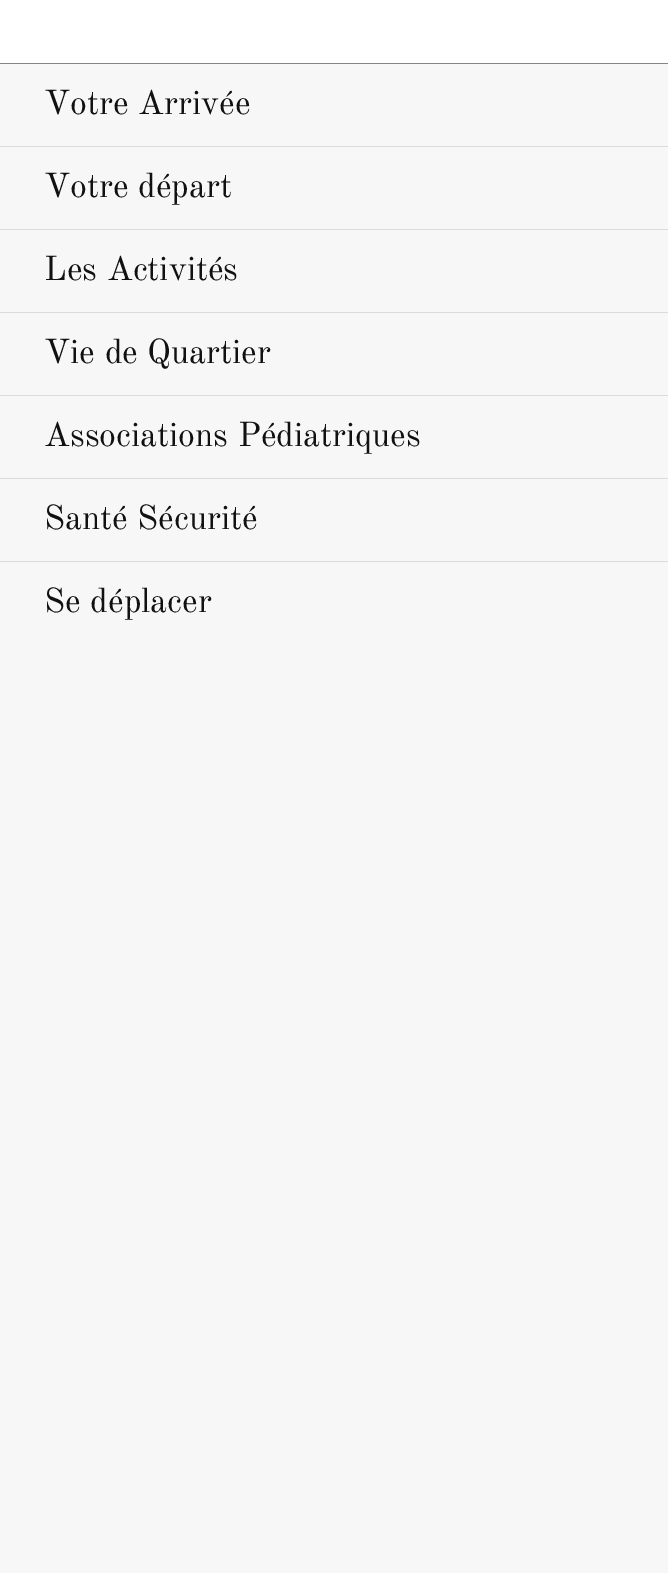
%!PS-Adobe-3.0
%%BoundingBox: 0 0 668 1573
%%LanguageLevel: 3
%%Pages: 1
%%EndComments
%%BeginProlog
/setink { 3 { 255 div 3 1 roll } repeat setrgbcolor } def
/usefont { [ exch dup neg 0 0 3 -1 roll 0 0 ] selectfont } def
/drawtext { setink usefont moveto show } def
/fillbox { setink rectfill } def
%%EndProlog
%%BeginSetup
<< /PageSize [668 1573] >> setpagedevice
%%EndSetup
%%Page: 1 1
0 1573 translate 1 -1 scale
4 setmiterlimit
0 0 668 1573 255 255 255 fillbox
0 63 668 1 101 137 198 fillbox
0 64 668 1509 247 247 247 fillbox
0 146 668 1 219 219 219 fillbox
(Votre Arrivée) 44 114 /OldStandardTT-Regular 34 17 17 17 drawtext
0 229 668 1 219 219 219 fillbox
(Votre départ) 44 197 /OldStandardTT-Regular 34 17 17 17 drawtext
0 312 668 1 219 219 219 fillbox
(Les Activités) 44 280 /OldStandardTT-Regular 34 17 17 17 drawtext
0 395 668 1 219 219 219 fillbox
(Vie de Quartier) 44 363 /OldStandardTT-Regular 34 17 17 17 drawtext
0 478 668 1 219 219 219 fillbox
(Associations Pédiatriques) 44 446 /OldStandardTT-Regular 34 17 17 17 drawtext
0 561 668 1 219 219 219 fillbox
(Santé Sécurité) 44 529 /OldStandardTT-Regular 34 17 17 17 drawtext
(Se déplacer) 44 612 /OldStandardTT-Regular 34 17 17 17 drawtext
showpage
%%EOF
